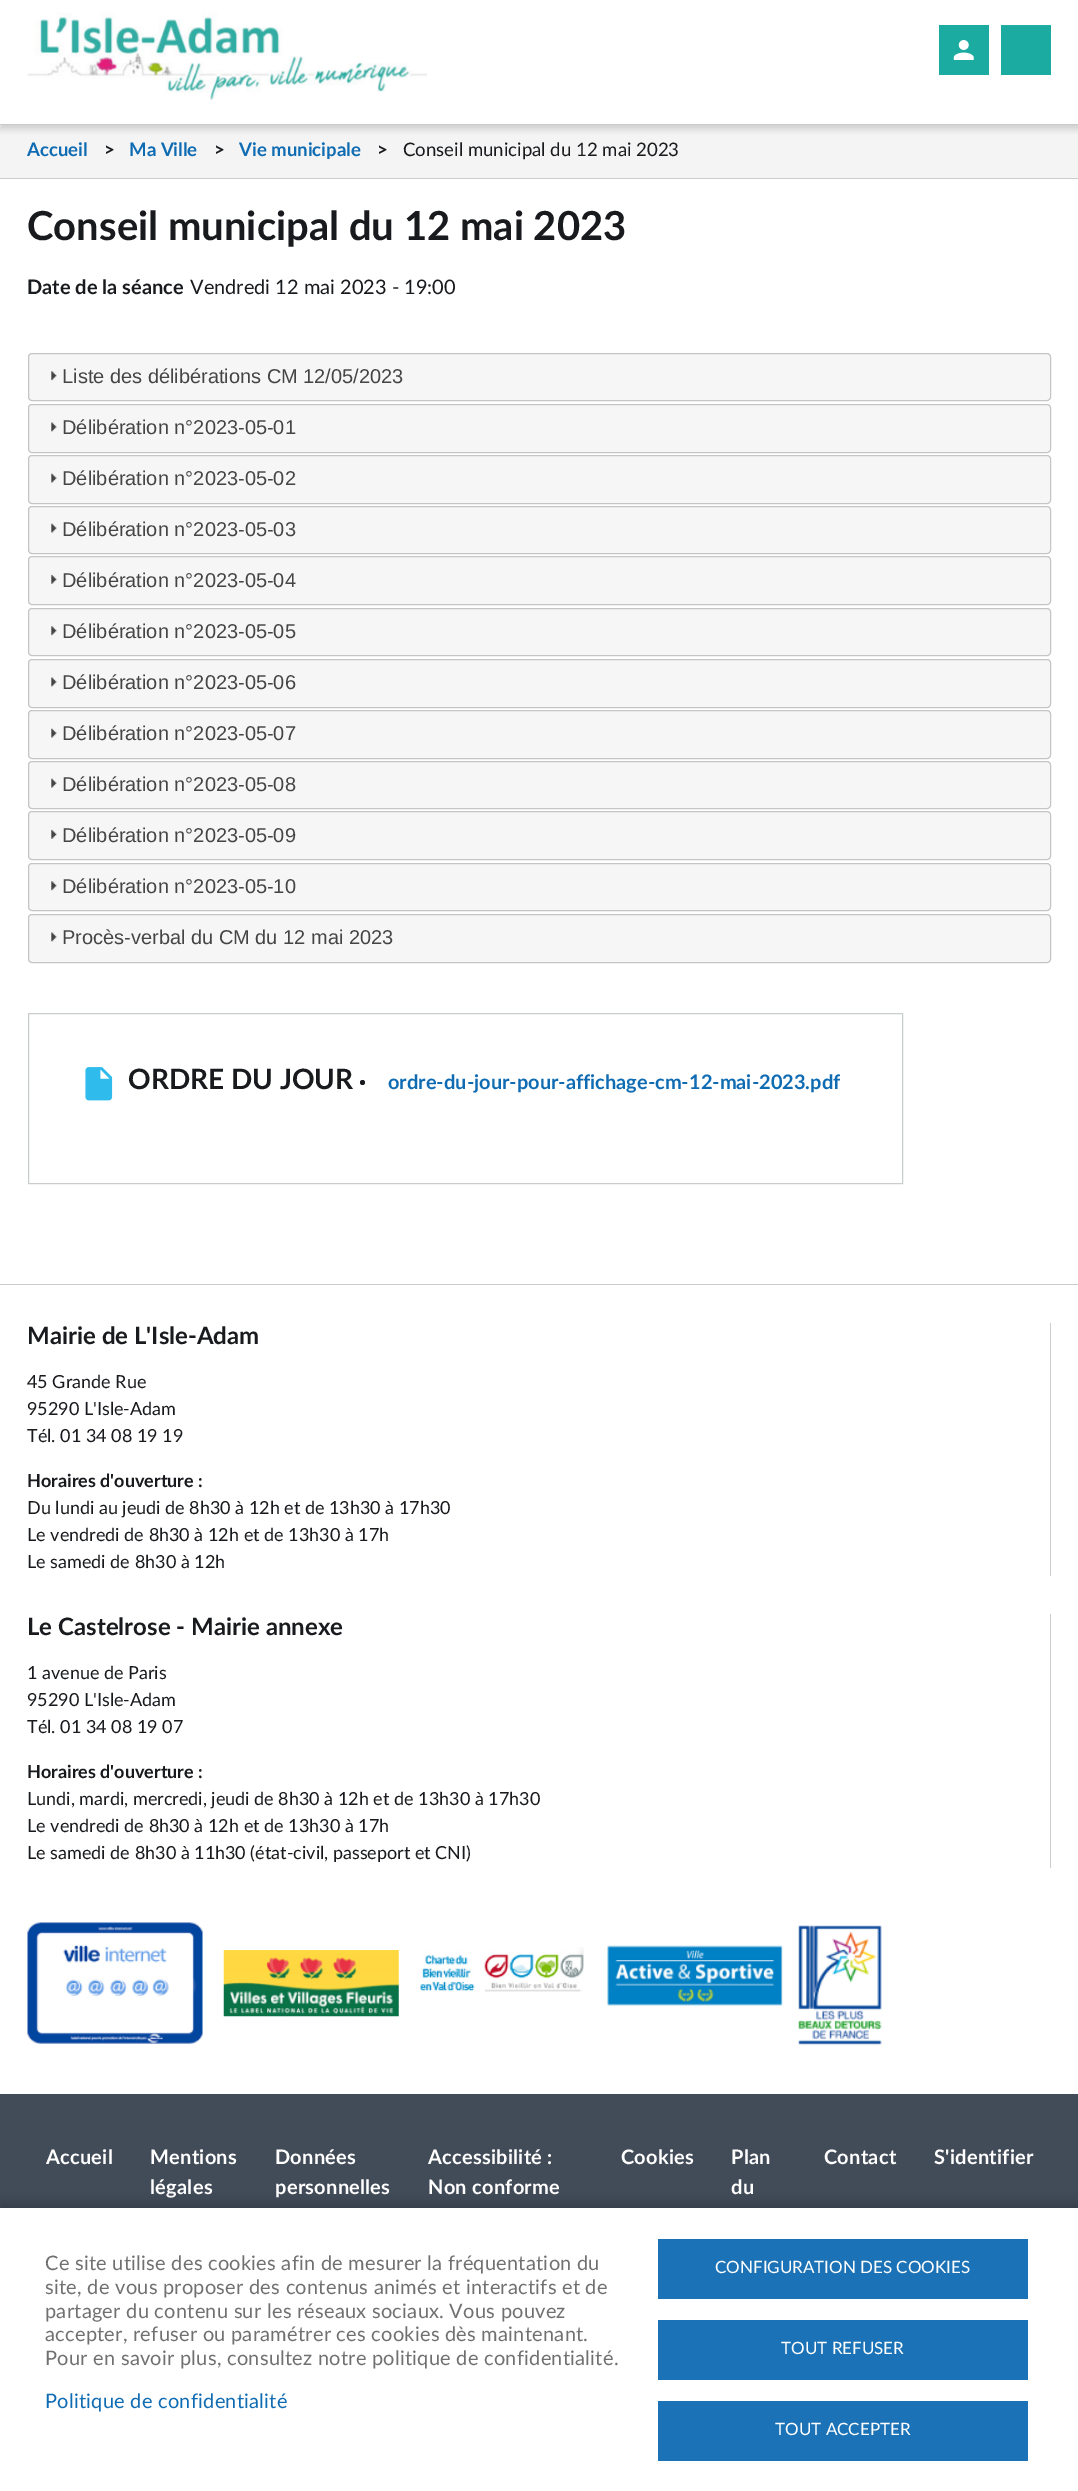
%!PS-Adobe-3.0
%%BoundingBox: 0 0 1078 2491
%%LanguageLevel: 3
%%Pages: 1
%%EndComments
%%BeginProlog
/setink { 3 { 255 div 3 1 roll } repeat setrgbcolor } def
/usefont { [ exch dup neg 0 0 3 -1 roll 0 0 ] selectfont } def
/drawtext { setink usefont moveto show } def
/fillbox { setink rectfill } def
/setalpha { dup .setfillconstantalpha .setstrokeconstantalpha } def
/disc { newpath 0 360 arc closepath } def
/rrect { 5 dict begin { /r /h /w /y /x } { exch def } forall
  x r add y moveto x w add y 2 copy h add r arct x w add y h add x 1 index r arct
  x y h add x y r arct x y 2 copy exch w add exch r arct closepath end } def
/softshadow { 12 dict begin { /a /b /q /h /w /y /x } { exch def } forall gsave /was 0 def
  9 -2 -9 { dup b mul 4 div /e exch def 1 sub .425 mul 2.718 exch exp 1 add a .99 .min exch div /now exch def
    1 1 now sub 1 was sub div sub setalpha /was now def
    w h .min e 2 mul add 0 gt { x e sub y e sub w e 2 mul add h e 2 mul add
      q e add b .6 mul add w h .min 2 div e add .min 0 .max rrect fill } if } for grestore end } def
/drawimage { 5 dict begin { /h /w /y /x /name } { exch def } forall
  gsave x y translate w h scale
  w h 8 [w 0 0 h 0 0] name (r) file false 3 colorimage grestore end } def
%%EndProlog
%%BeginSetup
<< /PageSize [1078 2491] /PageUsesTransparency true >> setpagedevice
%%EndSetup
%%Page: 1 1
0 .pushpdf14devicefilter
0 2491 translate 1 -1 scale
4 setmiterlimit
0 0 1078 2491 255 255 255 fillbox
0 125 1078 53 244 244 244 fillbox
gsave
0 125 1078 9 rectclip
0 0 0 setink
0 4 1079 125 0 4 0.16 softshadow
grestore
0 124 1078 1 201 205 205 fillbox
(assets/img1.rgb) 27 12 400 88 drawimage
939 25 50 50 27 171 161 fillbox
(assets/img2.rgb) 953 40 21 20 drawimage
1001 26 50 49 27 171 161 fillbox
1001 25 50 1 38 175 166 fillbox
0 178 1078 1 201 205 205 fillbox
(Accueil) 27 156 /Lato-Bold 18.6 15 107 178 drawtext
(>) 104 156 /Lato-Bold 18.6 24 26 29 drawtext
(Ma Ville) 129 156 /Lato-Bold 18.6 15 107 178 drawtext
(>) 214 156 /Lato-Bold 18.6 24 26 29 drawtext
(Vie municipale) 239 156 /Lato-Bold 18.6 15 107 178 drawtext
(>) 377 156 /Lato-Bold 18.6 24 26 29 drawtext
(Conseil municipal du 12 mai 2023) 403 156 /Lato-Regular 18.6 24 26 29 drawtext
(Conseil municipal du 12 mai 2023) 27 240 /Lato-Bold 40 24 26 29 drawtext
(Date de la séance) 27 294 /Lato-Bold 20 24 26 29 drawtext
(Vendredi 12 mai 2023 - 19:00) 190 294 /Lato-Regular 20 24 26 29 drawtext
246 246 246 setink
28.5 353.5 1022 47 3.5 rrect gsave fill grestore
197 197 197 setink
stroke
(assets/img3.rgb) 51 371 6 10 drawimage
(Liste des délibérations CM 12/05/2023) 62 383 /LiberationSans-Regular 20 69 69 69 drawtext
246 246 246 setink
28.5 404.5 1022 48 3.5 rrect gsave fill grestore
197 197 197 setink
stroke
(assets/img4.rgb) 51 422 6 10 drawimage
(Délibération n°2023-05-01) 62 434 /LiberationSans-Regular 20 69 69 69 drawtext
246 246 246 setink
28.5 455.5 1022 48 3.5 rrect gsave fill grestore
197 197 197 setink
stroke
(assets/img5.rgb) 51 473 6 10 drawimage
(Délibération n°2023-05-02) 62 485 /LiberationSans-Regular 20 69 69 69 drawtext
246 246 246 setink
28.5 506.5 1022 47 3.5 rrect gsave fill grestore
197 197 197 setink
stroke
(assets/img5.rgb) 51 523 6 10 drawimage
(Délibération n°2023-05-03) 62 536 /LiberationSans-Regular 20 69 69 69 drawtext
246 246 246 setink
28.5 556.5 1022 48 3.5 rrect gsave fill grestore
197 197 197 setink
stroke
(assets/img6.rgb) 51 574 6 10 drawimage
(Délibération n°2023-05-04) 62 587 /LiberationSans-Regular 20 69 69 69 drawtext
246 246 246 setink
28.5 608.5 1022 47 3.5 rrect gsave fill grestore
197 197 197 setink
stroke
(assets/img3.rgb) 51 626 6 10 drawimage
(Délibération n°2023-05-05) 62 638 /LiberationSans-Regular 20 69 69 69 drawtext
246 246 246 setink
28.5 659.5 1022 48 3.5 rrect gsave fill grestore
197 197 197 setink
stroke
(assets/img4.rgb) 51 677 6 10 drawimage
(Délibération n°2023-05-06) 62 689 /LiberationSans-Regular 20 69 69 69 drawtext
246 246 246 setink
28.5 710.5 1022 48 3.5 rrect gsave fill grestore
197 197 197 setink
stroke
(assets/img5.rgb) 51 728 6 10 drawimage
(Délibération n°2023-05-07) 62 740 /LiberationSans-Regular 20 69 69 69 drawtext
246 246 246 setink
28.5 761.5 1022 47 3.5 rrect gsave fill grestore
197 197 197 setink
stroke
(assets/img7.rgb) 51 778 6 10 drawimage
(Délibération n°2023-05-08) 62 791 /LiberationSans-Regular 20 69 69 69 drawtext
246 246 246 setink
28.5 811.5 1022 48 3.5 rrect gsave fill grestore
197 197 197 setink
stroke
(assets/img6.rgb) 51 829 6 10 drawimage
(Délibération n°2023-05-09) 62 842 /LiberationSans-Regular 20 69 69 69 drawtext
246 246 246 setink
28.5 863.5 1022 47 3.5 rrect gsave fill grestore
197 197 197 setink
stroke
(assets/img3.rgb) 51 881 6 10 drawimage
(Délibération n°2023-05-10) 62 893 /LiberationSans-Regular 20 69 69 69 drawtext
246 246 246 setink
28.5 914.5 1022 48 3.5 rrect gsave fill grestore
197 197 197 setink
stroke
(assets/img4.rgb) 51 932 6 10 drawimage
(Procès-verbal du CM du 12 mai 2023) 62 944 /LiberationSans-Regular 20 69 69 69 drawtext
201 205 205 setink
28.5 1013.5 874 170 rectstroke
(assets/img8.rgb) 85 1067 28 34 drawimage
(ORDRE DU JOUR) 128 1089 /Lato-Bold 28 24 26 29 drawtext
362.5 1082.5 2.5 disc fill
(ordre-du-jour-pour-affichage-cm-12-mai-2023.pdf) 388 1089 /Lato-Bold 20 15 107 178 drawtext
0 1284 1078 1 201 205 205 fillbox
1050 1323 1 253 201 205 205 fillbox
(Mairie de L'Isle-Adam) 27 1344 /Lato-Bold 24 24 26 29 drawtext
(45 Grande Rue) 27 1388 /Lato-Regular 18 24 26 29 drawtext
(95290 L'Isle-Adam) 27 1415 /Lato-Regular 18 24 26 29 drawtext
(Tél. 01 34 08 19 19) 27 1442 /Lato-Regular 18 24 26 29 drawtext
(Horaires d'ouverture :) 27 1487 /Lato-Bold 18 24 26 29 drawtext
(Du lundi au jeudi de 8h30 à 12h et de 13h30 à 17h30) 27 1514 /Lato-Regular 18 24 26 29 drawtext
(Le vendredi de 8h30 à 12h et de 13h30 à 17h) 27 1541 /Lato-Regular 18 24 26 29 drawtext
(Le samedi de 8h30 à 12h) 27 1568 /Lato-Regular 18 24 26 29 drawtext
1050 1614 1 254 201 205 205 fillbox
(Le Castelrose - Mairie annexe) 27 1635 /Lato-Bold 24 24 26 29 drawtext
(1 avenue de Paris) 27 1679 /Lato-Regular 18 24 26 29 drawtext
(95290 L'Isle-Adam) 27 1706 /Lato-Regular 18 24 26 29 drawtext
(Tél. 01 34 08 19 07) 27 1733 /Lato-Regular 18 24 26 29 drawtext
(Horaires d'ouverture :) 27 1778 /Lato-Bold 18 24 26 29 drawtext
(Lundi, mardi, mercredi, jeudi de 8h30 à 12h et de 13h30 à 17h30) 27 1805 /Lato-Regular 18 24 26 29 drawtext
(Le vendredi de 8h30 à 12h et de 13h30 à 17h) 27 1832 /Lato-Regular 18 24 26 29 drawtext
(Le samedi de 8h30 à 11h30 \(état-civil, passeport et CNI\)) 27 1859 /Lato-Regular 18 24 26 29 drawtext
(assets/img9.rgb) 27 1922 176 122 drawimage
(assets/img10.rgb) 223 1950 176 67 drawimage
(assets/img11.rgb) 420 1947 164 45 drawimage
(assets/img12.rgb) 607 1945 176 61 drawimage
(assets/img13.rgb) 798 1925 84 121 drawimage
0 2094 1078 114 66 75 88 fillbox
/Lato-Bold 20 usefont
255 255 255 setink
46 2164 moveto 0.25 0 (Accueil) ashow
150 2164 moveto 0.25 0 (Mentions) ashow
150 2194 moveto 0.25 0 (légales) ashow
275 2164 moveto 0.25 0 (Données) ashow
275 2194 moveto 0.25 0 (personnelles) ashow
428 2164 moveto 0.25 0 (Accessibilité :) ashow
428 2194 moveto 0.25 0 (Non conforme) ashow
621 2164 moveto 0.25 0 (Cookies) ashow
731 2164 moveto 0.25 0 (Plan) ashow
731 2194 moveto 0.25 0 (du) ashow
824 2164 moveto 0.25 0 (Contact) ashow
934 2164 moveto 0.25 0 (S'identifier) ashow
0 0 0 setink
0 2204 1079 284 0 6 0.2 softshadow
0 2208 1078 283 255 255 255 fillbox
/Lato-Regular 20 usefont
112 112 112 setink
45 2270 moveto 0.25 0 (Ce site utilise des cookies afin de mesurer la fréquentation du) ashow
45 2294 moveto 0.25 0 (site, de vous proposer des contenus animés et interactifs et de) ashow
45 2318 moveto 0.25 0 (partager du contenu sur les réseaux sociaux. Vous pouvez) ashow
45 2341 moveto 0.25 0 (accepter, refuser ou paramétrer ces cookies dès maintenant.) ashow
45 2365 moveto 0.25 0 (Pour en savoir plus, consultez notre politique de confidentialité.) ashow
15 107 178 setink
45 2408 moveto 0.25 0 (Politique de confidentialité) ashow
658 2239 370 60 27 114 182 fillbox
(CONFIGURATION DES COOKIES) 715 2273 /Lato-Regular 17 255 255 255 drawtext
658 2320 370 60 27 114 182 fillbox
(TOUT REFUSER) 781 2354 /Lato-Regular 17 255 255 255 drawtext
658 2401 370 60 27 114 182 fillbox
(TOUT ACCEPTER) 775 2435 /Lato-Regular 17 255 255 255 drawtext
.poppdf14devicefilter showpage
%%EOF
